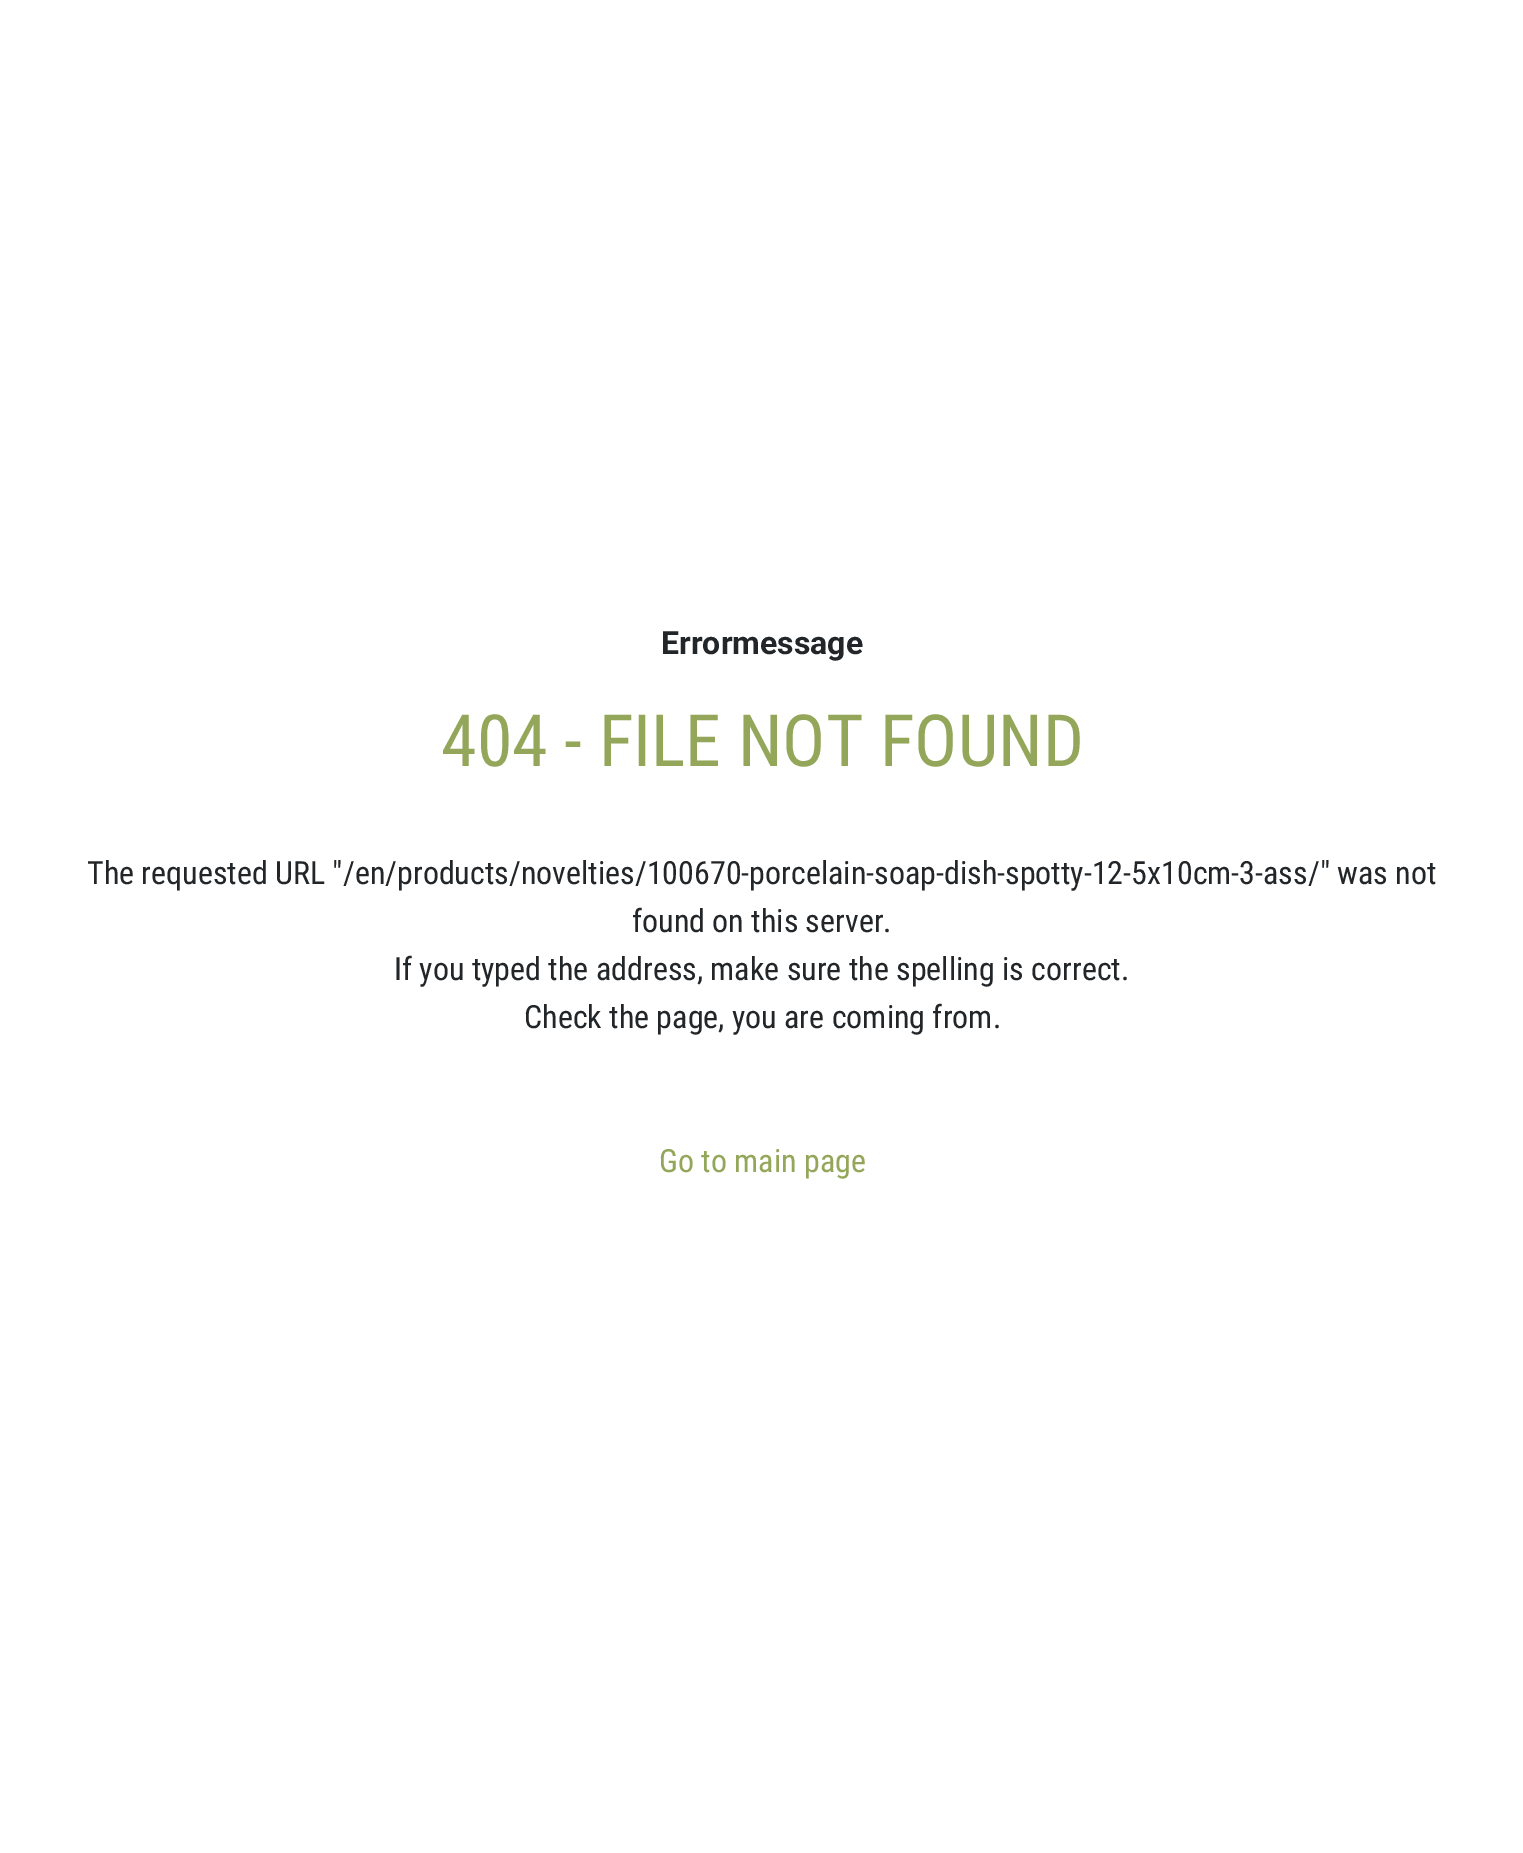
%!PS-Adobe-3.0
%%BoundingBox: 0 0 1523 1853
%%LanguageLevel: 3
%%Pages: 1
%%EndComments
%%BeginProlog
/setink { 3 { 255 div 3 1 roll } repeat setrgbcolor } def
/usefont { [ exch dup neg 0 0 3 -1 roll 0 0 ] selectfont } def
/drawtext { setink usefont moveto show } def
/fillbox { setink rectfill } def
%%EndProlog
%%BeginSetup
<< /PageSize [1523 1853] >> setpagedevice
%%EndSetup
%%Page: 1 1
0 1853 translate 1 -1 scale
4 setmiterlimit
0 0 1523 1853 255 255 255 fillbox
(Errormessage) 661 654 /Roboto-Bold 32 35 38 41 drawtext
(404 - FILE NOT FOUND) 441 766 /RobotoCondensed-Regular 72 147 166 89 drawtext
(The requested URL "/en/products/novelties/100670-porcelain-soap-dish-spotty-12-5x10cm-3-ass/" was not) 87 884 /RobotoCondensed-Regular 32 35 38 41 drawtext
(found on this server.) 632 932 /RobotoCondensed-Regular 32 35 38 41 drawtext
(If you typed the address, make sure the spelling is correct.) 394 980 /RobotoCondensed-Regular 32 35 38 41 drawtext
(Check the page, you are coming from.) 524 1028 /RobotoCondensed-Regular 32 35 38 41 drawtext
(Go to main page) 659 1172 /RobotoCondensed-Regular 32 147 166 89 drawtext
showpage
%%EOF
